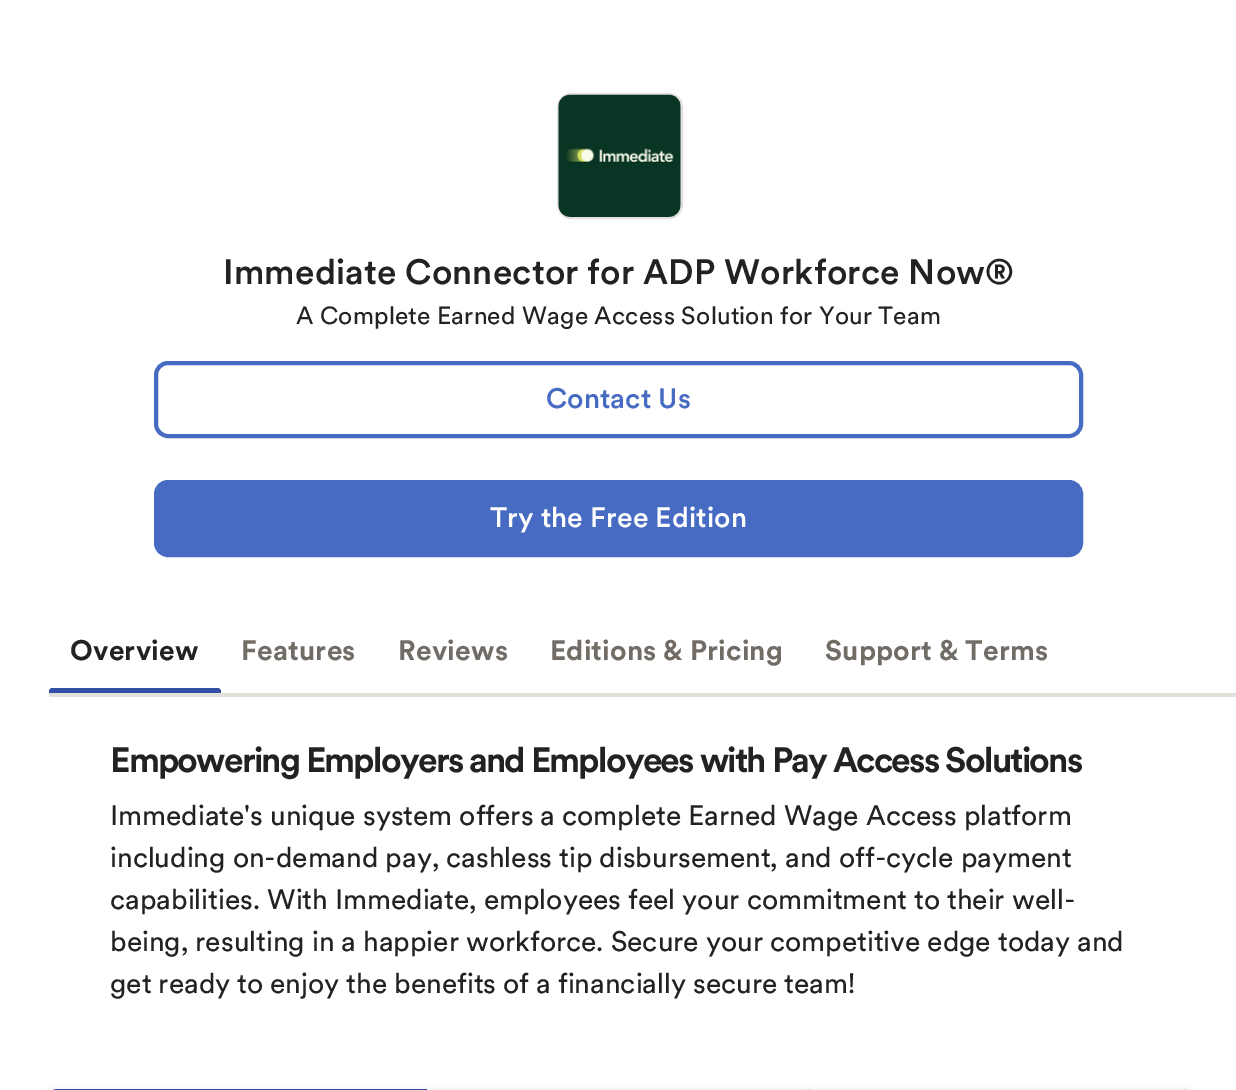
%!PS-Adobe-3.0
%%BoundingBox: 0 0 1236 1090
%%LanguageLevel: 3
%%Pages: 1
%%EndComments
%%BeginProlog
/setink { 3 { 255 div 3 1 roll } repeat setrgbcolor } def
/usefont { [ exch dup neg 0 0 3 -1 roll 0 0 ] selectfont } def
/drawtext { setink usefont moveto show } def
/fillbox { setink rectfill } def
/setalpha { dup .setfillconstantalpha .setstrokeconstantalpha } def
/rrect { 5 dict begin { /r /h /w /y /x } { exch def } forall
  x r add y moveto x w add y 2 copy h add r arct x w add y h add x 1 index r arct
  x y h add x y r arct x y 2 copy exch w add exch r arct closepath end } def
/softshadow { 12 dict begin { /a /b /q /h /w /y /x } { exch def } forall gsave /was 0 def
  9 -2 -9 { dup b mul 4 div /e exch def 1 sub .425 mul 2.718 exch exp 1 add a .99 .min exch div /now exch def
    1 1 now sub 1 was sub div sub setalpha /was now def
    w h .min e 2 mul add 0 gt { x e sub y e sub w e 2 mul add h e 2 mul add
      q e add b .6 mul add w h .min 2 div e add .min 0 .max rrect fill } if } for grestore end } def
/drawimage { 5 dict begin { /h /w /y /x /name } { exch def } forall
  gsave x y translate w h scale
  w h 8 [w 0 0 h 0 0] name (r) file false 3 colorimage grestore end } def
%%EndProlog
%%BeginSetup
<< /PageSize [1236 1090] /PageUsesTransparency true >> setpagedevice
%%EndSetup
%%Page: 1 1
0 .pushpdf14devicefilter
0 1090 translate 1 -1 scale
4 setmiterlimit
0 0 1236 1090 255 255 255 fillbox
227 223 218 setink
2 setlinewidth
558 94 124 124 13 rrect stroke
255 255 255 setink
558 95 123 122 12 rrect fill
(assets/img1.rgb) 558 94 123 123 drawimage
/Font-Medium 35 usefont
34 34 34 setink
223 284 moveto 0.18 0 (Immediate Connector for ADP Workforce Now®) ashow
/Font-Regular 24.5 usefont
296 324 moveto 0.18 0 (A Complete Earned Wage Access Solution for Your Team) ashow
71 107 195 setink
4 setlinewidth
156 363 925 73 12 rrect stroke
/Font-Medium 28 usefont
546 408 moveto 0.18 0 (Contact Us) ashow
156 482 925 73 12 rrect gsave fill grestore
stroke
255 255 255 setink
490 527 moveto 0.18 0 (Try the Free Edition) ashow
49 693 1187 4 227 223 218 fillbox
/Font-Bold 28 usefont
34 34 34 setink
70 660 moveto 0.18 0 (Overview) ashow
gsave
49 609 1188 84 rectclip
50 79 165 setink
49 688 172 7 3.5 rrect fill
grestore
114 108 102 setink
241 660 moveto 0.18 0 (Features) ashow
398 660 moveto 0.18 0 (Reviews) ashow
550 660 moveto 0.18 0 (Editions & Pricing) ashow
825 660 moveto 0.18 0 (Support & Terms) ashow
/Font-Bold 35 usefont
34 34 34 setink
110 772 moveto -1.75 0 (Empowering Employers and Employees with Pay Access Solutions) ashow
(Immediate's unique system offers a complete Earned Wage Access platform) 110 825 /Font-Regular 28 34 34 34 drawtext
(including on-demand pay, cashless tip disbursement, and off-cycle payment) 110 867 /Font-Regular 28 34 34 34 drawtext
(capabilities. With Immediate, employees feel your commitment to their well-) 110 909 /Font-Regular 28 34 34 34 drawtext
(being, resulting in a happier workforce. Secure your competitive edge today and) 110 951 /Font-Regular 28 34 34 34 drawtext
(get ready to enjoy the benefits of a financially secure team!) 110 993 /Font-Regular 28 34 34 34 drawtext
0 0 0 setink
44 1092 1150 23 14 3.5 0.2 softshadow
50 79 165 setink
58 1089 moveto 427 1089 lineto 427 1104 lineto 44 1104 lineto 44 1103 lineto 44 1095.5 50.5 1089 58 1089 curveto closepath fill
gsave
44 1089 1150 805 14 rrect clip newpath
0 0 0 setink
427 1089 383 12 0 3.5 0.2 softshadow
grestore
243 243 243 setink
2 setlinewidth
428 1090 381 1 rectstroke
gsave
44 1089 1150 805 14 rrect clip newpath
0 0 0 setink
810 1089 384 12 0 3.5 0.2 softshadow
grestore
810 1089 moveto 810 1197 lineto 1194 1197 lineto 1194 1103 lineto 1194 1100 1193 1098 1192 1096 curveto 1192 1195 lineto 812 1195 lineto 812 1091 lineto 1187 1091 lineto 1185 1090 1183 1089 1180 1089 curveto closepath fill
.poppdf14devicefilter showpage
%%EOF
